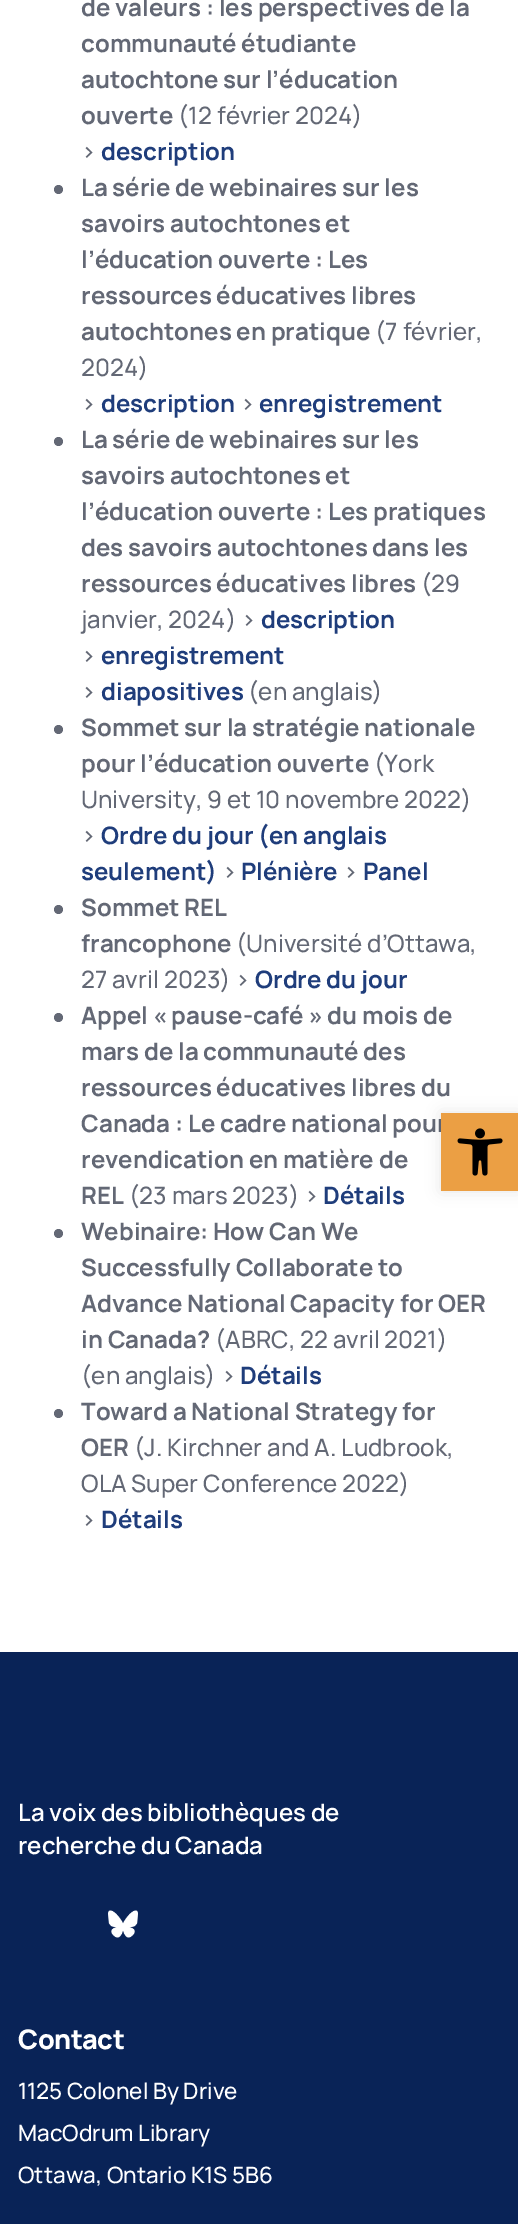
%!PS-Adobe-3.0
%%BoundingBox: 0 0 518 2224
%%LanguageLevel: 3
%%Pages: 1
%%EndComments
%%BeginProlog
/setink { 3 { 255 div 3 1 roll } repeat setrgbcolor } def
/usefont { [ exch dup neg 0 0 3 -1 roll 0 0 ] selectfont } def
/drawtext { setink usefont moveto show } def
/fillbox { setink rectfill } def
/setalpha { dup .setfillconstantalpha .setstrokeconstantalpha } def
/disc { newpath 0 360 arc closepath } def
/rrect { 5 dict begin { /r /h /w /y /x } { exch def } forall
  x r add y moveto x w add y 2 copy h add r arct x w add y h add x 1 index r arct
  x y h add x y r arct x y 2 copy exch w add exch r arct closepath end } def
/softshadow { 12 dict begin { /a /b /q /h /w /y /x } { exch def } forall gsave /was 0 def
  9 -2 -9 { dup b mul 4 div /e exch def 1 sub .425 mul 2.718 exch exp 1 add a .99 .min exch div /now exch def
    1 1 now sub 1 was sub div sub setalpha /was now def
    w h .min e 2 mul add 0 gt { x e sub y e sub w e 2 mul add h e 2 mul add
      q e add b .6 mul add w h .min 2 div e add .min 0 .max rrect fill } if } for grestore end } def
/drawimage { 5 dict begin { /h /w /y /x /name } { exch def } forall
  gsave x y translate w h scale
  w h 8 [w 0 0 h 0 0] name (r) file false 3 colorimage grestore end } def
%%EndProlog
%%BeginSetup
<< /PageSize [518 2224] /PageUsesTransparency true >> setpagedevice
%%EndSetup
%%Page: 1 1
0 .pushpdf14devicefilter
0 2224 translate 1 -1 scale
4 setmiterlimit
0 0 518 2224 255 255 255 fillbox
(de valeurs : les perspectives de la) 81 16 /Manrope-Bold 24 99 104 117 drawtext
(communauté étudiante) 81 52 /Manrope-Bold 24 99 104 117 drawtext
(autochtone sur l’éducation) 81 88 /Manrope-Bold 24 99 104 117 drawtext
(ouverte) 81 124 /Manrope-Bold 24 99 104 117 drawtext
(\(12 février 2024\)) 178 124 /Manrope-ExtraLight 24 99 104 117 drawtext
(>) 81 160 /Manrope-ExtraLight 24 99 104 117 drawtext
(description) 101 160 /Manrope-Bold 24 31 61 123 drawtext
99 104 117 setink
58.5 189.5 4.5 disc fill
(La série de webinaires sur les) 81 196 /Manrope-Bold 24 99 104 117 drawtext
(savoirs autochtones et) 81 232 /Manrope-Bold 24 99 104 117 drawtext
(l’éducation ouverte : Les) 81 268 /Manrope-Bold 24 99 104 117 drawtext
(ressources éducatives libres) 81 304 /Manrope-Bold 24 99 104 117 drawtext
(autochtones en pratique) 81 340 /Manrope-Bold 24 99 104 117 drawtext
(\(7 février,) 375 340 /Manrope-ExtraLight 24 99 104 117 drawtext
(2024\)) 81 376 /Manrope-ExtraLight 24 99 104 117 drawtext
(>) 81 412 /Manrope-ExtraLight 24 99 104 117 drawtext
(description) 101 412 /Manrope-Bold 24 31 61 123 drawtext
(>) 240 412 /Manrope-ExtraLight 24 99 104 117 drawtext
(enregistrement) 259 412 /Manrope-Bold 24 31 61 123 drawtext
99 104 117 setink
58.5 441.5 4.5 disc fill
(La série de webinaires sur les) 81 448 /Manrope-Bold 24 99 104 117 drawtext
(savoirs autochtones et) 81 484 /Manrope-Bold 24 99 104 117 drawtext
(l’éducation ouverte : Les pratiques) 81 520 /Manrope-Bold 24 99 104 117 drawtext
(des savoirs autochtones dans les) 81 556 /Manrope-Bold 24 99 104 117 drawtext
(ressources éducatives libres) 81 592 /Manrope-Bold 24 99 104 117 drawtext
(\(29) 421 592 /Manrope-ExtraLight 24 99 104 117 drawtext
(janvier, 2024\) >) 81 628 /Manrope-ExtraLight 24 99 104 117 drawtext
(description) 261 628 /Manrope-Bold 24 31 61 123 drawtext
(>) 81 664 /Manrope-ExtraLight 24 99 104 117 drawtext
(enregistrement) 101 664 /Manrope-Bold 24 31 61 123 drawtext
(>) 81 700 /Manrope-ExtraLight 24 99 104 117 drawtext
(diapositives) 101 700 /Manrope-Bold 24 31 61 123 drawtext
(\(en anglais\)) 248 700 /Manrope-ExtraLight 24 99 104 117 drawtext
58.5 729.5 4.5 disc fill
(Sommet sur la stratégie nationale) 81 736 /Manrope-Bold 24 99 104 117 drawtext
(pour l’éducation ouverte) 81 772 /Manrope-Bold 24 99 104 117 drawtext
(\(York) 374 772 /Manrope-ExtraLight 24 99 104 117 drawtext
(University, 9 et 10 novembre 2022\)) 81 808 /Manrope-ExtraLight 24 99 104 117 drawtext
(>) 81 844 /Manrope-ExtraLight 24 99 104 117 drawtext
(Ordre du jour \(en anglais) 101 844 /Manrope-Bold 24 31 61 123 drawtext
(seulement\)) 81 880 /Manrope-Bold 24 31 61 123 drawtext
(>) 222 880 /Manrope-ExtraLight 24 99 104 117 drawtext
(Plénière) 241 880 /Manrope-Bold 24 31 61 123 drawtext
(>) 343 880 /Manrope-ExtraLight 24 99 104 117 drawtext
(Panel) 363 880 /Manrope-Bold 24 31 61 123 drawtext
99 104 117 setink
58.5 909.5 4.5 disc fill
(Sommet REL) 81 916 /Manrope-Bold 24 99 104 117 drawtext
(francophone) 81 952 /Manrope-Bold 24 99 104 117 drawtext
(\(Université d’Ottawa,) 236 952 /Manrope-ExtraLight 24 99 104 117 drawtext
(27 avril 2023\) >) 81 988 /Manrope-ExtraLight 24 99 104 117 drawtext
(Ordre du jour) 255 988 /Manrope-Bold 24 31 61 123 drawtext
99 104 117 setink
58.5 1017.5 4.5 disc fill
(Appel « pause-café » du mois de) 81 1024 /Manrope-Bold 24 99 104 117 drawtext
(mars de la communauté des) 81 1060 /Manrope-Bold 24 99 104 117 drawtext
(ressources éducatives libres du) 81 1096 /Manrope-Bold 24 99 104 117 drawtext
(Canada : Le cadre national pour) 81 1132 /Manrope-Bold 24 99 104 117 drawtext
(revendication en matière de) 81 1168 /Manrope-Bold 24 99 104 117 drawtext
(REL) 81 1204 /Manrope-Bold 24 99 104 117 drawtext
(\(23 mars 2023\) >) 129 1204 /Manrope-ExtraLight 24 99 104 117 drawtext
(Détails) 323 1204 /Manrope-Bold 24 31 61 123 drawtext
99 104 117 setink
58.5 1233.5 4.5 disc fill
(Webinaire: How Can We) 81 1240 /Manrope-Bold 24 99 104 117 drawtext
(Successfully Collaborate to) 81 1276 /Manrope-Bold 24 99 104 117 drawtext
(Advance National Capacity for OER) 81 1312 /Manrope-Bold 24 99 104 117 drawtext
(in Canada?) 81 1348 /Manrope-Bold 24 99 104 117 drawtext
(\(ABRC, 22 avril 2021\)) 215 1348 /Manrope-ExtraLight 24 99 104 117 drawtext
(\(en anglais\) >) 81 1384 /Manrope-ExtraLight 24 99 104 117 drawtext
(Détails) 240 1384 /Manrope-Bold 24 31 61 123 drawtext
99 104 117 setink
58.5 1413.5 4.5 disc fill
(Toward a National Strategy for) 81 1420 /Manrope-Bold 24 99 104 117 drawtext
(OER) 81 1456 /Manrope-Bold 24 99 104 117 drawtext
(\(J. Kirchner and A. Ludbrook,) 134 1456 /Manrope-ExtraLight 24 99 104 117 drawtext
(OLA Super Conference 2022\)) 81 1492 /Manrope-ExtraLight 24 99 104 117 drawtext
(>) 81 1528 /Manrope-ExtraLight 24 99 104 117 drawtext
(Détails) 101 1528 /Manrope-Bold 24 31 61 123 drawtext
0 0 0 setink
441 1113 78 78 0 7.5 0.1 softshadow
441 1113 77 78 235 159 68 fillbox
(assets/img1.rgb) 457 1128 46 48 drawimage
0 1652 518 572 9 35 87 fillbox
(La voix des bibliothèques de) 18 1821 /Manrope-SemiBold 24 255 255 255 drawtext
(recherche du Canada) 18 1854 /Manrope-SemiBold 24 255 255 255 drawtext
(assets/img2.rgb) 108 1910 30 28 drawimage
/Manrope-ExtraBold 27 usefont
18 2049 moveto -0.5 0 (Contact) ashow
(1125 Colonel By Drive) 18 2099 /Manrope-ExtraLight 22.5 255 255 255 drawtext
(MacOdrum Library) 18 2141 /Manrope-ExtraLight 22.5 255 255 255 drawtext
(Ottawa, Ontario K1S 5B6) 18 2183 /Manrope-ExtraLight 22.5 255 255 255 drawtext
.poppdf14devicefilter showpage
%%EOF
